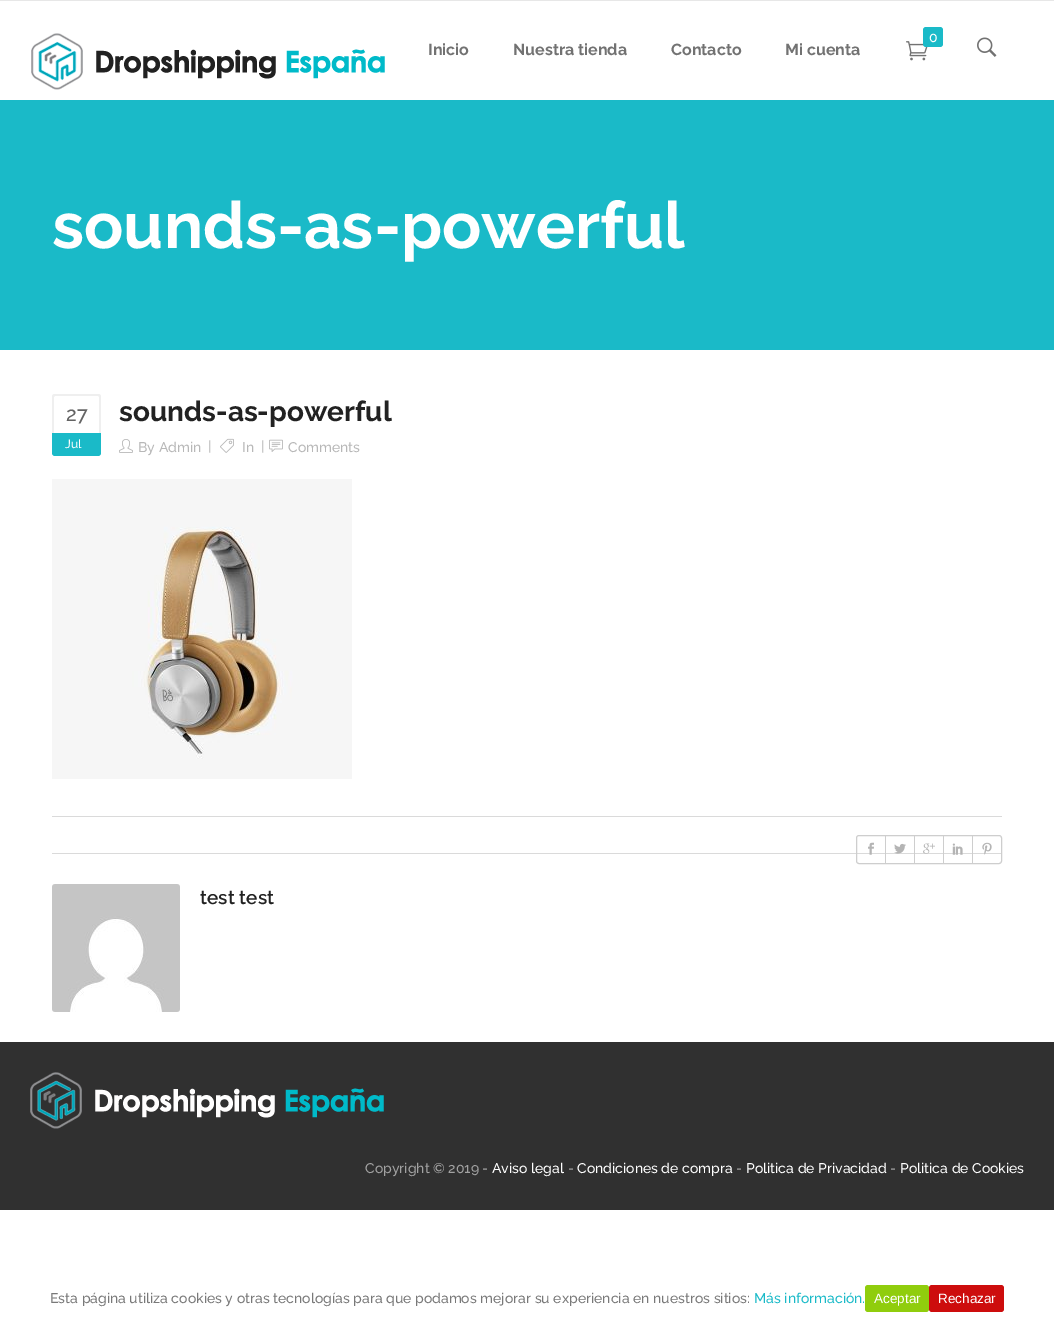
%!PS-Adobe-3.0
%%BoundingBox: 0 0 1054 1327
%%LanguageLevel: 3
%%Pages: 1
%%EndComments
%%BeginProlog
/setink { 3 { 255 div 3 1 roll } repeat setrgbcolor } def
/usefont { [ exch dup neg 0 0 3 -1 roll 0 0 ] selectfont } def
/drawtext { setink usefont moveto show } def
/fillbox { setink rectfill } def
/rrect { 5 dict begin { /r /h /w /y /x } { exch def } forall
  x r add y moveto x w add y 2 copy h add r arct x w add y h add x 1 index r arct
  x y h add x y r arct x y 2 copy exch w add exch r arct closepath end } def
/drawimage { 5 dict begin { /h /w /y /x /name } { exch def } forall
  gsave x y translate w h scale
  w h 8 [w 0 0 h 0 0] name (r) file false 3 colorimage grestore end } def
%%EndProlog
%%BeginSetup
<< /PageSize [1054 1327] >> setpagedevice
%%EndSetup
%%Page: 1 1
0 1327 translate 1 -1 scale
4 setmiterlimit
0 0 1054 1327 255 255 255 fillbox
0 0 1054 1 231 231 231 fillbox
(assets/img1.rgb) 31 33 354 57 drawimage
(Inicio) 428 55 /Raleway-Bold 16 114 114 114 drawtext
(Nuestra tienda) 513 55 /Raleway-Bold 16 114 114 114 drawtext
(Contacto) 671 55 /Raleway-Bold 16 114 114 114 drawtext
(Mi cuenta) 785 55 /Raleway-Bold 16 114 114 114 drawtext
(assets/img2.rgb) 906 41 22 20 drawimage
26 186 200 setink
923 27 20 20 3 rrect fill
(0) 929 42 /Raleway-Medium 14 255 255 255 drawtext
(assets/img3.rgb) 977 37 20 20 drawimage
0 100 1054 250 26 186 200 fillbox
(sounds-as-powerful) 52 248 /Raleway-Bold 65 255 255 255 drawtext
239 239 239 setink
55 394 moveto 98 394 lineto 100 394 101 395 101 397 curveto 101 433 lineto 52 433 lineto 52 397 lineto 52 395 53 394 55 394 curveto closepath 55 396 moveto 98 396 lineto 99 396 99 396 99 397 curveto 99 433 lineto 54 433 lineto 54 397 lineto closepath eofill
(27) 66 421 /Raleway-Medium 20 99 99 99 drawtext
26 186 200 setink
52 433 moveto 101 433 lineto 101 453 lineto 101 454.5 99.5 456 98 456 curveto 55 456 lineto 53.5 456 52 454.5 52 453 curveto closepath fill
(Jul) 65 448 /Raleway-Medium 12 255 255 255 drawtext
(sounds-as-powerful) 119 421 /Raleway-Bold 28 34 34 34 drawtext
(assets/img4.rgb) 119 439 14 14 drawimage
(By Admin) 138 452 /Raleway-Medium 14 184 184 184 drawtext
(|) 208 451 /Raleway-Medium 14 184 184 184 drawtext
(assets/img5.rgb) 220 438 14 15 drawimage
(In) 242 452 /Raleway-Medium 14 184 184 184 drawtext
(|) 261 451 /Raleway-Medium 14 184 184 184 drawtext
(assets/img6.rgb) 269 439 14 13 drawimage
(Comments) 288 452 /Raleway-Medium 14 184 184 184 drawtext
(assets/img7.rgb) 52 479 300 300 drawimage
52 816 950 1 218 218 218 fillbox
52 853 950 1 218 218 218 fillbox
206 206 206 setink
856.5 835.5 145 28 2.5 rrect stroke
885 836 1 27 206 206 206 fillbox
(assets/img8.rgb) 868 842 6 13 drawimage
914 836 1 27 206 206 206 fillbox
(assets/img9.rgb) 894 843 12 11 drawimage
943 836 1 27 206 206 206 fillbox
(assets/img10.rgb) 923 843 12 11 drawimage
972 836 1 27 206 206 206 fillbox
(assets/img11.rgb) 952 843 11 12 drawimage
(assets/img12.rgb) 982 842 10 13 drawimage
(assets/img13.rgb) 52 884 128 128 drawimage
(test test) 200 904 /Raleway-SemiBold 19 34 34 34 drawtext
0 1042 1054 168 48 48 48 fillbox
(assets/img14.rgb) 30 1072 354 57 drawimage
(Copyright © 2019 -) 365 1173 /Raleway-Medium 14 162 162 162 drawtext
(Aviso legal) 492 1173 /Raleway-Medium 14 255 255 255 drawtext
(-) 568 1173 /Raleway-Medium 14 162 162 162 drawtext
(Condiciones de compra) 577 1173 /Raleway-Medium 14 255 255 255 drawtext
(-) 736 1173 /Raleway-Medium 14 162 162 162 drawtext
(Politica de Privacidad) 746 1173 /Raleway-Medium 14 255 255 255 drawtext
(-) 890 1173 /Raleway-Medium 14 162 162 162 drawtext
(Politica de Cookies) 900 1173 /Raleway-Medium 14 255 255 255 drawtext
(Esta página utiliza cookies y otras tecnologías para que podamos mejorar su experiencia en nuestros sitios:) 50 1303 /Raleway-Medium 14 121 121 121 drawtext
(Más información.) 754 1303 /Raleway-Medium 14 26 186 200 drawtext
144 205 13 setink
865 1285 64 27 3 rrect fill
(Aceptar) 874 1303 /LiberationSans-Regular 13.5 255 255 255 drawtext
205 13 13 setink
929 1285 75 27 3 rrect fill
(Rechazar) 938 1303 /LiberationSans-Regular 13.5 255 255 255 drawtext
showpage
%%EOF
